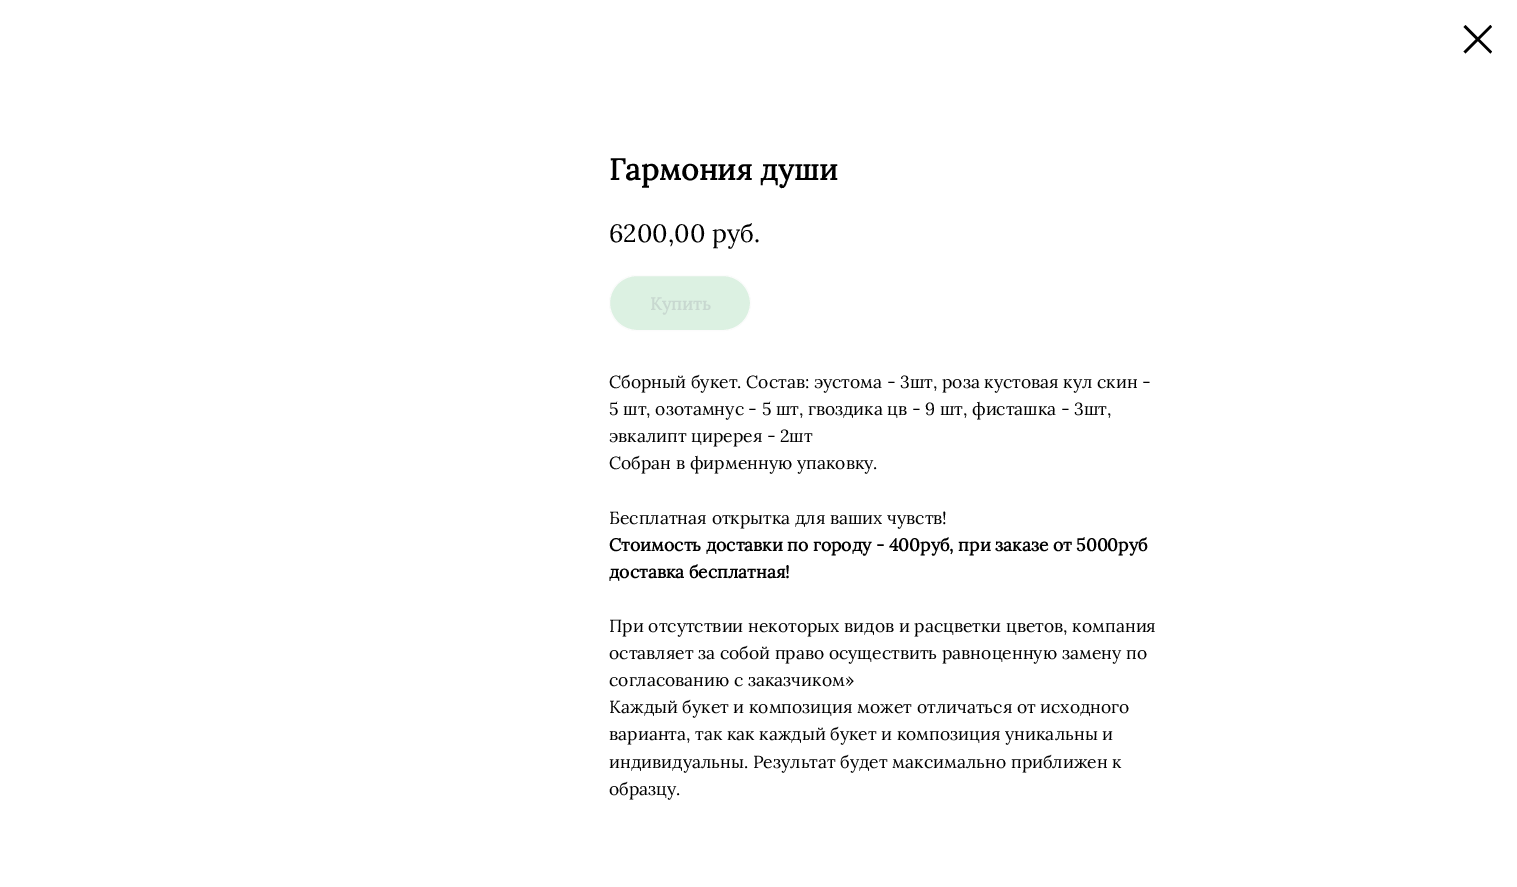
%!PS-Adobe-3.0
%%BoundingBox: 0 0 1517 887
%%LanguageLevel: 3
%%Pages: 1
%%EndComments
%%BeginProlog
/setink { 3 { 255 div 3 1 roll } repeat setrgbcolor } def
/usefont { [ exch dup neg 0 0 3 -1 roll 0 0 ] selectfont } def
/drawtext { setink usefont moveto show } def
/fillbox { setink rectfill } def
/rrect { 5 dict begin { /r /h /w /y /x } { exch def } forall
  x r add y moveto x w add y 2 copy h add r arct x w add y h add x 1 index r arct
  x y h add x y r arct x y 2 copy exch w add exch r arct closepath end } def
%%EndProlog
%%BeginSetup
<< /PageSize [1517 887] >> setpagedevice
%%EndSetup
%%Page: 1 1
0 887 translate 1 -1 scale
4 setmiterlimit
0 0 1517 887 255 255 255 fillbox
0 0 0 setink
1463.5 27 moveto 1465.5 25 lineto 1492 51.5 lineto 1490.5 53.5 lineto closepath eofill
1490.5 25 moveto 1492 27 lineto 1465.5 53.5 lineto 1463.5 51.5 lineto closepath eofill
(Гармония души) 609 180 /Lora-Bold 30 0 0 0 drawtext
(6200,00) 609 242 /Lora-Regular 25 0 0 0 drawtext
(руб.) 712 242 /Lora-Regular 25 0 0 0 drawtext
220 241 226 setink
609.5 275.5 141 55 27.5 rrect gsave fill grestore
252 252 252 setink
stroke
(Купить) 650 310 /Lora-Bold 17.5 200 216 208 drawtext
(Сборный букет. Состав: эустома - 3шт, роза кустовая кул скин -) 609 388 /Lora-Regular 17.5 0 0 0 drawtext
(5 шт, озотамнус - 5 шт, гвоздика цв - 9 шт, фисташка - 3шт,) 609 415 /Lora-Regular 17.5 0 0 0 drawtext
(эвкалипт циререя - 2шт) 609 442 /Lora-Regular 17.5 0 0 0 drawtext
(Собран в фирменную упаковку.) 609 469 /Lora-Regular 17.5 0 0 0 drawtext
(Бесплатная открытка для ваших чувств!) 609 524 /Lora-Regular 17.5 0 0 0 drawtext
(Стоимость доставки по городу - 400руб, при заказе от 5000руб) 609 551 /Lora-Bold 17.5 0 0 0 drawtext
(доставка бесплатная!) 609 578 /Lora-Bold 17.5 0 0 0 drawtext
(При отсутствии некоторых видов и расцветки цветов, компания) 609 632 /Lora-Regular 17.5 0 0 0 drawtext
(оставляет за собой право осуществить равноценную замену по) 609 659 /Lora-Regular 17.5 0 0 0 drawtext
(согласованию с заказчиком») 609 686 /Lora-Regular 17.5 0 0 0 drawtext
(Каждый букет и композиция может отличаться от исходного) 609 713 /Lora-Regular 17.5 0 0 0 drawtext
(варианта, так как каждый букет и композиция уникальны и) 609 740 /Lora-Regular 17.5 0 0 0 drawtext
(индивидуальны. Результат будет максимально приближен к) 609 768 /Lora-Regular 17.5 0 0 0 drawtext
(образцу.) 609 795 /Lora-Regular 17.5 0 0 0 drawtext
showpage
%%EOF
